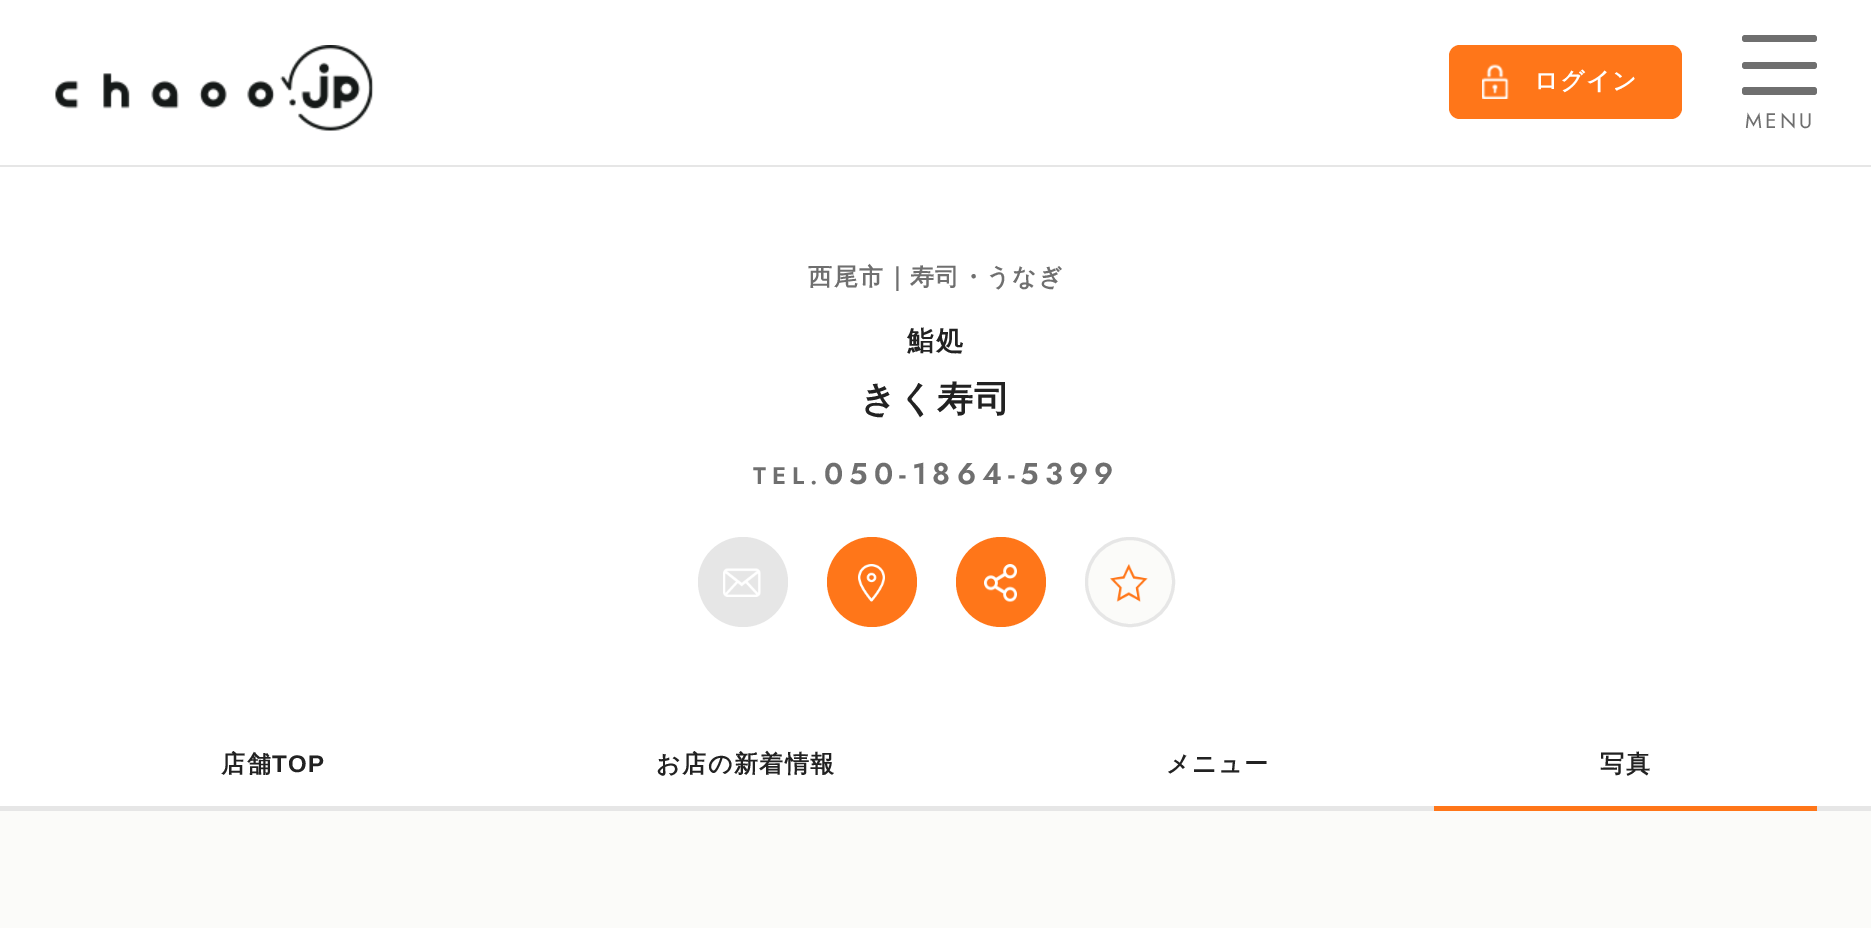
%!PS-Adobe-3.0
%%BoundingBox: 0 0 1871 928
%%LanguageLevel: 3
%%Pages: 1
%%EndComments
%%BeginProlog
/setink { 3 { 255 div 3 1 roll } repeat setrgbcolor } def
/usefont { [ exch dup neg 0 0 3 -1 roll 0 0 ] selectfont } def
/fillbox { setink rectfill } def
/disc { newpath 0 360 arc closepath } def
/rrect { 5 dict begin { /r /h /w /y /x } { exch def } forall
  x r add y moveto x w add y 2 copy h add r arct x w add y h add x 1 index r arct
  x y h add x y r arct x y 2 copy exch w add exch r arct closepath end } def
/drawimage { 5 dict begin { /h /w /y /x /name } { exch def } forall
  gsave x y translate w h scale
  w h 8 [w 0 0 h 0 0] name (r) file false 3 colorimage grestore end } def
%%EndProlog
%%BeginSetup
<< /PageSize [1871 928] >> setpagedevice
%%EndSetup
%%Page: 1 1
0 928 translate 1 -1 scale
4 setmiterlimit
0 0 1871 928 255 255 255 fillbox
0 165 1871 2 230 230 230 fillbox
(assets/img1.rgb) 55 45 319 86 drawimage
255 118 25 setink
1449 45 233 74 11 rrect fill
(assets/img2.rgb) 1482 64 27 35 drawimage
/WenQuanYiZenHei-Bold 24 usefont
255 255 255 setink
1534 89 moveto 1.5 0 (ログイン) ashow
111 111 111 setink
1742 35 75 7 3 rrect fill
1742 62 75 7 3 rrect fill
1742 87 75 8 3 rrect fill
/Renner-Regular 21 usefont
1745 128 moveto 3 0 (MENU) ashow
0 806 1871 5 230 230 230 fillbox
/WenQuanYiZenHei-Bold 24 usefont
111 111 111 setink
808 285 moveto 1.5 0 (西尾市｜寿司・うなぎ) ashow
/WenQuanYiZenHei-Bold 27 usefont
34 34 34 setink
907 350 moveto 1.5 0 (鮨処) ashow
/WenQuanYiZenHei-Bold 36 usefont
860 411 moveto 1.5 0 (きく寿司) ashow
/Renner-SemiBold 24 usefont
111 111 111 setink
753 484 moveto 6 0 (TEL.) ashow
/Renner-SemiBold 30 usefont
824 484 moveto 6 0 (050-1864-5399) ashow
230 230 230 setink
743 582 45 disc fill
(assets/img3.rgb) 723 568 38 29 drawimage
255 118 25 setink
872 582 45 disc fill
(assets/img4.rgb) 858 564 27 38 drawimage
1001 582 45 disc fill
(assets/img5.rgb) 984 564 33 38 drawimage
251 251 249 setink
1130 582 45 disc fill
(assets/img6.rgb) 1110 564 38 38 drawimage
230 230 230 setink
3 setlinewidth
1130 582 43.5 disc stroke
/WenQuanYiZenHei-Bold 24 usefont
34 34 34 setink
221 772 moveto 1.5 0 (店舗) ashow
/LiberationSans-Bold 24 usefont
272 772 moveto 1.5 0 (TOP) ashow
/WenQuanYiZenHei-Bold 24 usefont
656 772 moveto 1.5 0 (お店の新着情報) ashow
1166 772 moveto 1.5 0 (メニュー) ashow
1434 806 383 5 255 118 25 fillbox
34 34 34 setink
1600 772 moveto 1.5 0 (写真) ashow
0 811 1871 117 251 251 249 fillbox
showpage
%%EOF
